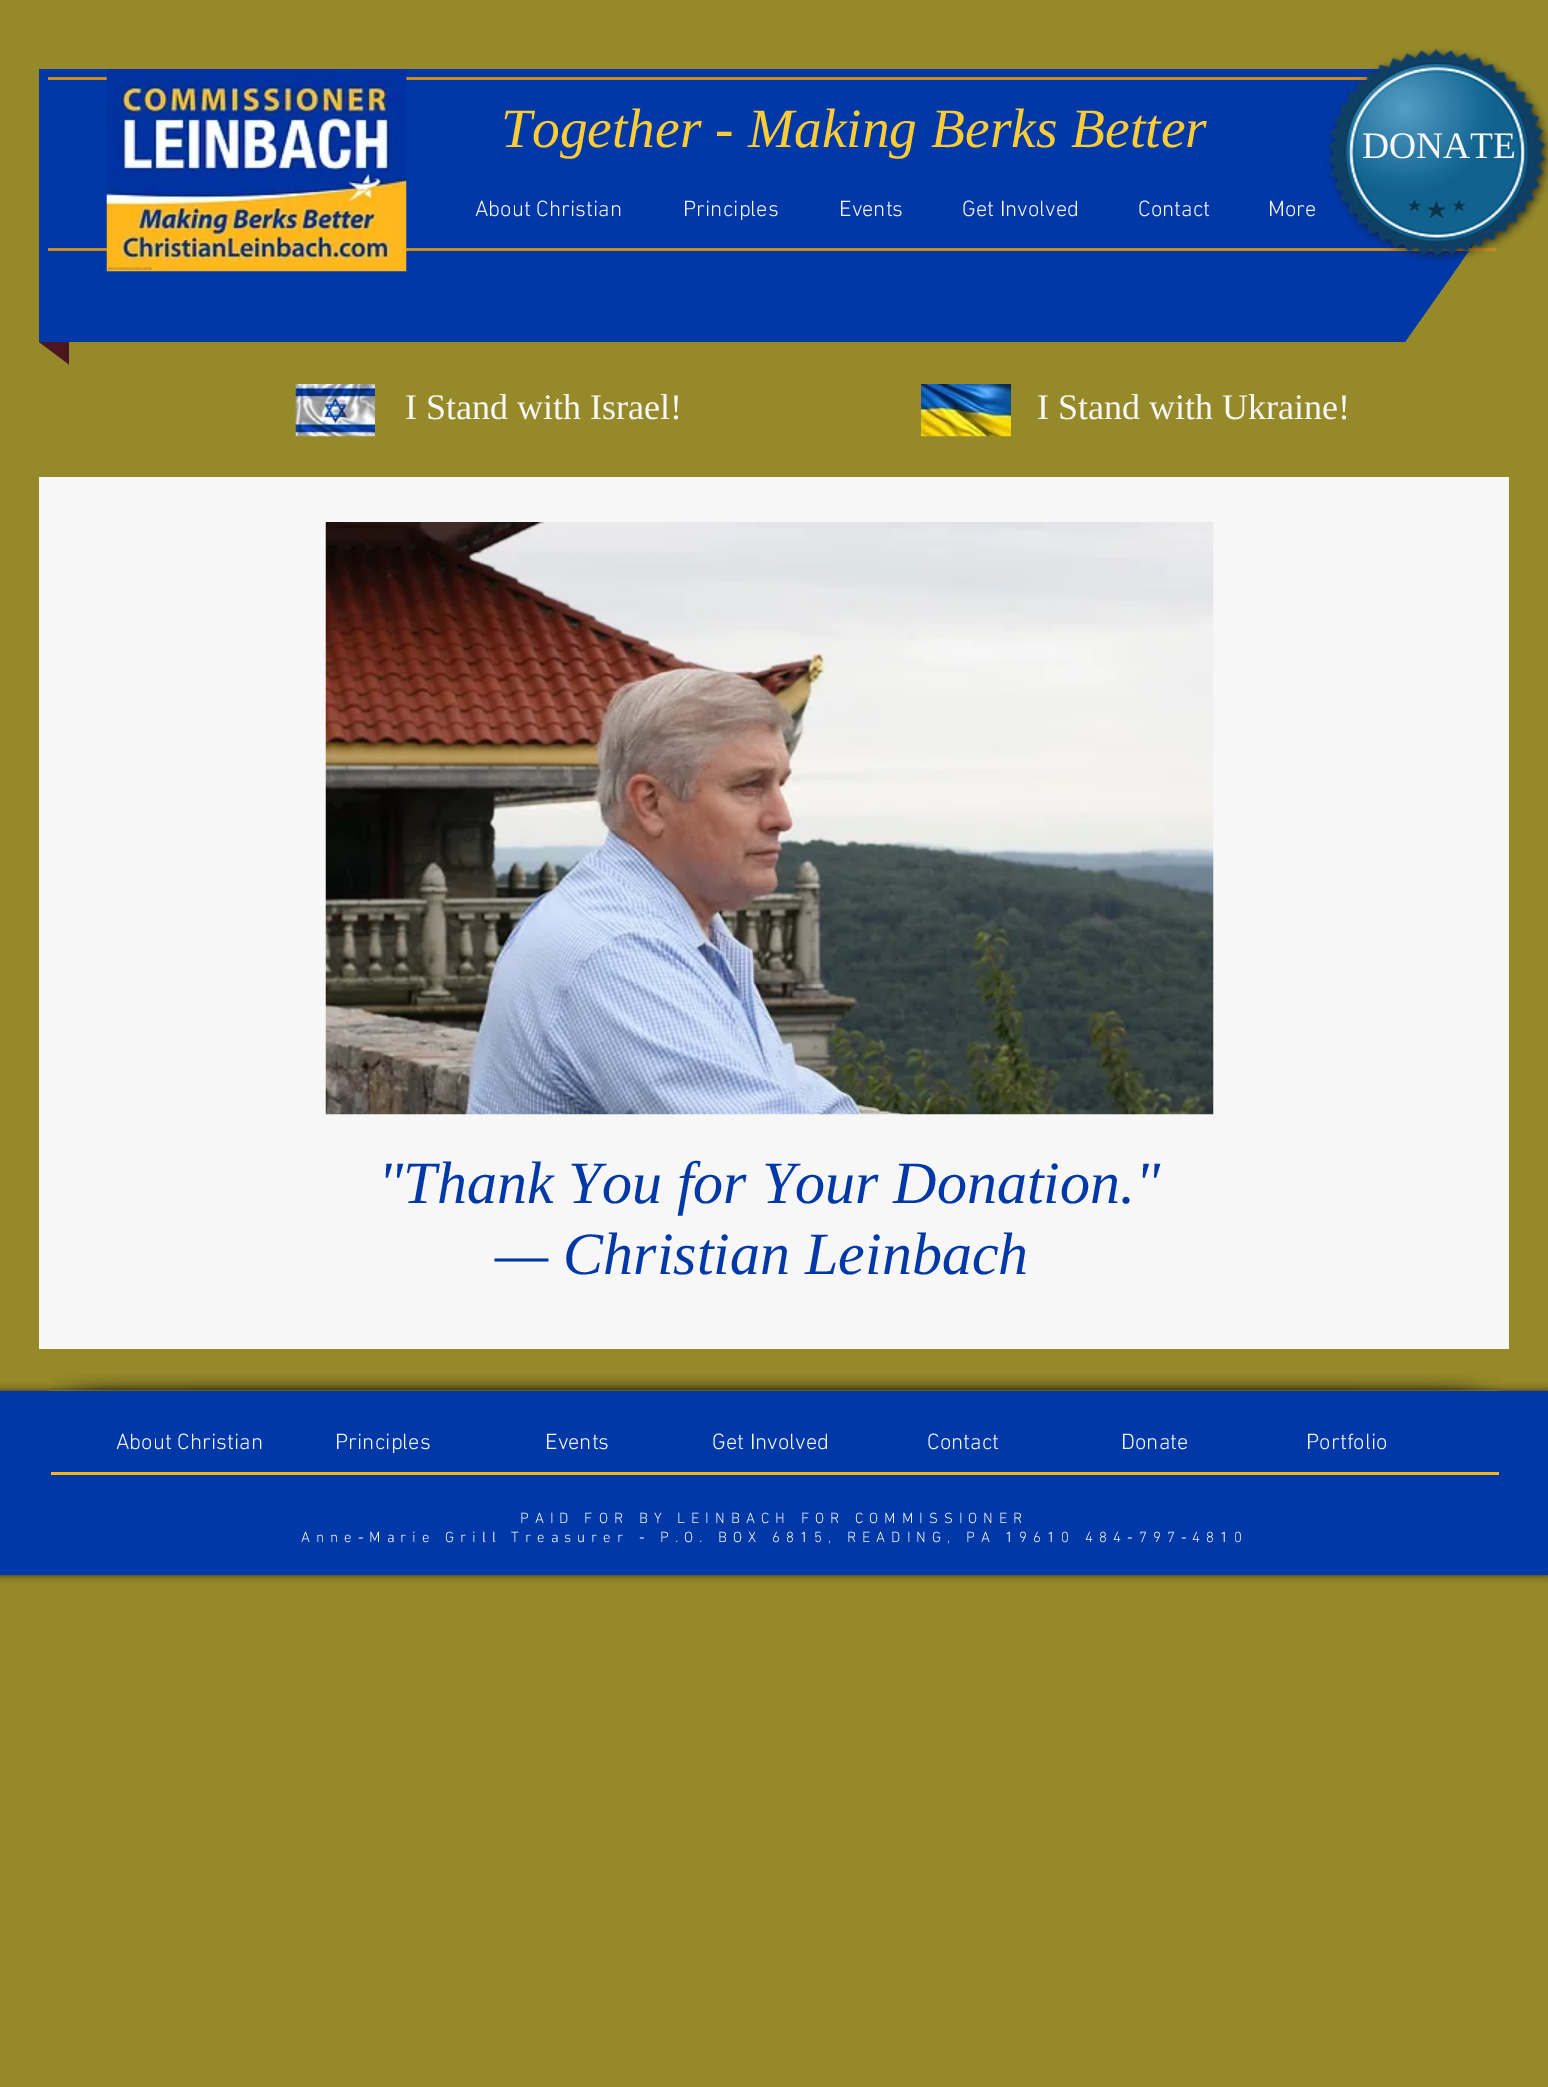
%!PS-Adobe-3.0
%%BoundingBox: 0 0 1548 2087
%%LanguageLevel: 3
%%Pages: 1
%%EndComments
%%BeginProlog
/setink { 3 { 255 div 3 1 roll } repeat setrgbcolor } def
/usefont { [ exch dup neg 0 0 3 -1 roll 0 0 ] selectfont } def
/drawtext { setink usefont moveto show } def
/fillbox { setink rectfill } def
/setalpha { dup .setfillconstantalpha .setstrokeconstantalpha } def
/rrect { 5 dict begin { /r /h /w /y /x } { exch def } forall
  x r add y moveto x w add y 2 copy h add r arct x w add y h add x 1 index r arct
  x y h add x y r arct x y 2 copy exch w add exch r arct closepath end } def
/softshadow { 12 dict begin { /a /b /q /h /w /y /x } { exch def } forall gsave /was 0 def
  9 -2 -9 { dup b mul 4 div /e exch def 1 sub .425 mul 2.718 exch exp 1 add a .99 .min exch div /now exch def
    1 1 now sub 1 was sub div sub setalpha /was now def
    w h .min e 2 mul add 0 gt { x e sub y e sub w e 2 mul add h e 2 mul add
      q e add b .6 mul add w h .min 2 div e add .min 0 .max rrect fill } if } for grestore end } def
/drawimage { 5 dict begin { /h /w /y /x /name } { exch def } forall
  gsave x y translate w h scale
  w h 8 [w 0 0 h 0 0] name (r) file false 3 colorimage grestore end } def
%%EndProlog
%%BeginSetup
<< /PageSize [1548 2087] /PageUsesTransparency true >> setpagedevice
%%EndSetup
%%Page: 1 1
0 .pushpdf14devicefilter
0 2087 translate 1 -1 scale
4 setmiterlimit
0 0 1548 2087 150 137 42 fillbox
gsave
39 69 1463 273 rectclip
0 56 168 setink
-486 204 moveto 1502 204 lineto 976 952 lineto -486 952 lineto closepath fill
1502 207 moveto -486 207 lineto -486 -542 lineto 976 -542 lineto closepath fill
grestore
48 77 1330 3 206 138 34 fillbox
48 248 1448 3 206 138 34 fillbox
(assets/img1.rgb) 106 69 301 203 drawimage
(assets/img2.rgb) 1326 47 222 216 drawimage
(Together - Making Berks Better) 501 147 /LiberationSerif-Italic 55.5 255 204 51 drawtext
(DONATE) 1362 158 /LiberationSerif-Regular 37.5 247 247 247 drawtext
(About Christian) 475 216 /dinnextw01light-Light 22.5 247 247 247 drawtext
(Principles) 683 216 /dinnextw01light-Light 22.5 247 247 247 drawtext
(Events) 839 216 /dinnextw01light-Light 22.5 247 247 247 drawtext
(Get Involved) 962 216 /dinnextw01light-Light 22.5 247 247 247 drawtext
(Contact) 1138 216 /dinnextw01light-Light 22.5 247 247 247 drawtext
(More) 1268 216 /dinnextw01light-Light 22.5 247 247 247 drawtext
75 21 33 setink
69 342 moveto 69 364.5 lineto 39 342 lineto closepath fill
(assets/img3.rgb) 295 384 80 53 drawimage
(I Stand with Israel!) 405 419 /LiberationSerif-Regular 36 247 247 247 drawtext
(assets/img4.rgb) 921 384 90 53 drawimage
(I Stand with Ukraine!) 1037 419 /LiberationSerif-Regular 36 247 247 247 drawtext
39 477 1470 872 247 247 247 fillbox
(assets/img5.rgb) 325 522 889 593 drawimage
("Thank You for Your Donation.") 378 1203 /LiberationSerif-Italic 60 0 56 168 drawtext
(— Christian Leinbach) 495 1274 /LiberationSerif-Italic 60 0 56 168 drawtext
0 0 0 setink
0 1391 1548 184 0 4 0.7 softshadow
0 1391 1548 184 0 56 168 fillbox
(assets/img6.rgb) 49 1374 140 17 drawimage
(assets/img7.rgb) 189 1374 1170 17 drawimage
(assets/img8.rgb) 1359 1374 140 17 drawimage
(About Christian) 116 1449 /dinnextw01light-Light 22.5 247 247 247 drawtext
(Principles) 335 1449 /dinnextw01light-Light 22.5 247 247 247 drawtext
(Events) 545 1449 /dinnextw01light-Light 22.5 247 247 247 drawtext
(Get Involved) 712 1449 /dinnextw01light-Light 22.5 247 247 247 drawtext
(Contact) 927 1449 /dinnextw01light-Light 22.5 247 247 247 drawtext
(Donate) 1121 1449 /dinnextw01light-Light 22.5 247 247 247 drawtext
(Portfolio) 1306 1449 /dinnextw01light-Light 22.5 247 247 247 drawtext
51 1472 1448 3 252 181 20 fillbox
/dinnextw01light-Light 15 usefont
255 255 255 setink
520 1523 moveto 6 0 (PAID FOR BY LEINBACH FOR COMMISSIONER) ashow
301 1542 moveto 6 0 (Anne-Marie Grill Treasurer - P.O. BOX 6815, READING, PA 19610 484-797-4810) ashow
.poppdf14devicefilter showpage
%%EOF
